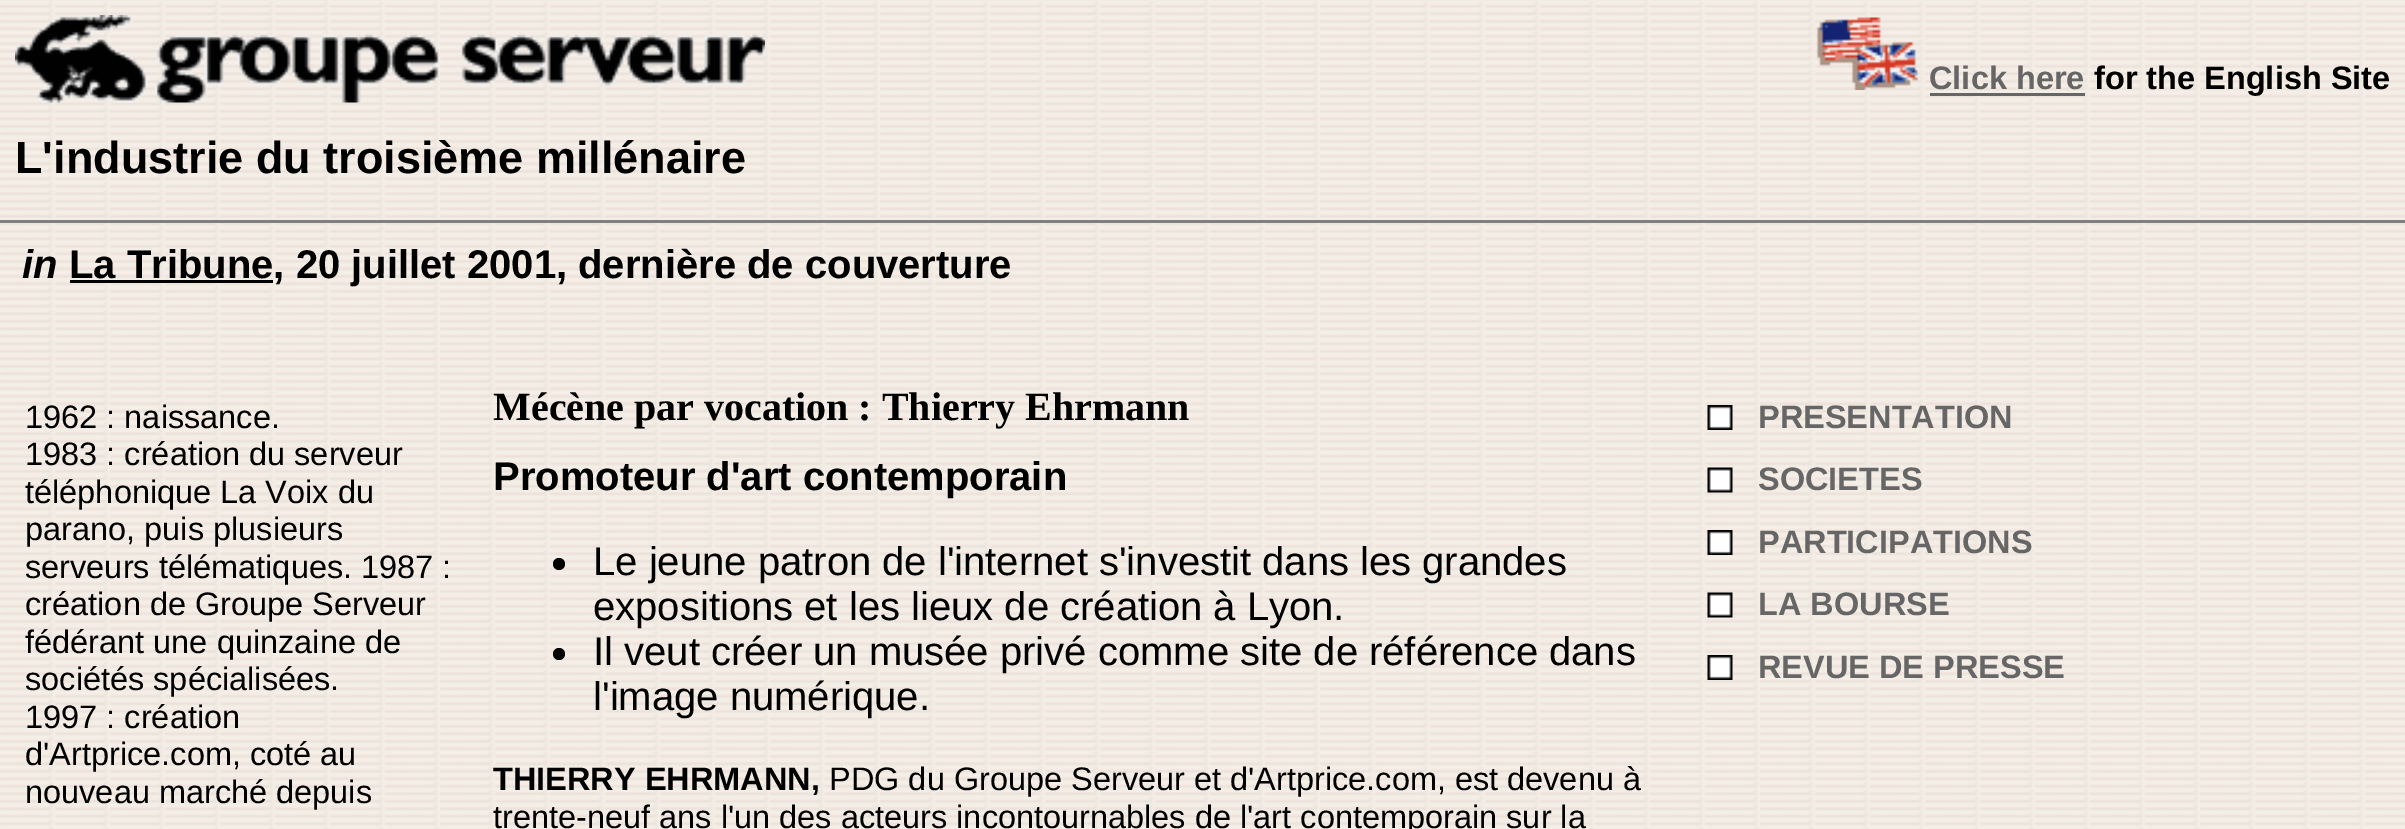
%!PS-Adobe-3.0
%%BoundingBox: 0 0 2405 829
%%LanguageLevel: 3
%%Pages: 1
%%EndComments
%%BeginProlog
/setink { 3 { 255 div 3 1 roll } repeat setrgbcolor } def
/usefont { [ exch dup neg 0 0 3 -1 roll 0 0 ] selectfont } def
/drawtext { setink usefont moveto show } def
/fillbox { setink rectfill } def
/disc { newpath 0 360 arc closepath } def
/drawimage { 5 dict begin { /h /w /y /x /name } { exch def } forall
  gsave x y translate w h scale
  w h 8 [w 0 0 h 0 0] name (r) file false 3 colorimage grestore end } def
%%EndProlog
%%BeginSetup
<< /PageSize [2405 829] >> setpagedevice
%%EndSetup
%%Page: 1 1
0 829 translate 1 -1 scale
4 setmiterlimit
0 0 2405 829 255 255 255 fillbox
(assets/img1.rgb) 0 0 2405 829 drawimage
(assets/img2.rgb) 15 15 750 88 drawimage
(assets/img3.rgb) 1816 17 102 73 drawimage
(Click here) 1929 89 /LiberationSans-Bold 32.5 102 102 102 drawtext
1930 93 155 3 102 102 102 fillbox
(for the English Site) 2094 89 /LiberationSans-Bold 32.5 0 0 0 drawtext
(L'industrie du troisième millénaire) 15 173 /LiberationSans-Bold 45 0 0 0 drawtext
0 220 2405 3 128 128 128 fillbox
(in) 22 278 /LiberationSans-BoldItalic 40 0 0 0 drawtext
70 280 203 3 0 0 0 fillbox
(La Tribune, 20 juillet 2001, dernière de couverture) 69 278 /LiberationSans-Bold 40 0 0 0 drawtext
(1962 : naissance.) 25 428 /LiberationSans-Regular 32.5 0 0 0 drawtext
(1983 : création du serveur) 25 465 /LiberationSans-Regular 32.5 0 0 0 drawtext
(téléphonique La Voix du) 25 503 /LiberationSans-Regular 32.5 0 0 0 drawtext
(parano, puis plusieurs) 25 540 /LiberationSans-Regular 32.5 0 0 0 drawtext
(serveurs télématiques. 1987 :) 25 578 /LiberationSans-Regular 32.5 0 0 0 drawtext
(création de Groupe Serveur) 25 615 /LiberationSans-Regular 32.5 0 0 0 drawtext
(fédérant une quinzaine de) 25 653 /LiberationSans-Regular 32.5 0 0 0 drawtext
(sociétés spécialisées.) 25 690 /LiberationSans-Regular 32.5 0 0 0 drawtext
(1997 : création) 25 728 /LiberationSans-Regular 32.5 0 0 0 drawtext
(d'Artprice.com, coté au) 25 765 /LiberationSans-Regular 32.5 0 0 0 drawtext
(nouveau marché depuis) 25 803 /LiberationSans-Regular 32.5 0 0 0 drawtext
(Mécène par vocation : Thierry Ehrmann) 493 420 /LiberationSerif-Bold 40 0 0 0 drawtext
(assets/img4.rgb) 1707 405 26 25 drawimage
(PRESENTATION) 1758 428 /LiberationSans-Bold 32.5 102 102 102 drawtext
(assets/img5.rgb) 1707 467 26 26 drawimage
(SOCIETES) 1758 490 /LiberationSans-Bold 32.5 102 102 102 drawtext
(assets/img6.rgb) 1707 530 26 25 drawimage
(PARTICIPATIONS) 1758 553 /LiberationSans-Bold 32.5 102 102 102 drawtext
(assets/img7.rgb) 1707 592 26 26 drawimage
(LA BOURSE) 1758 615 /LiberationSans-Bold 32.5 102 102 102 drawtext
(assets/img8.rgb) 1707 655 26 25 drawimage
(REVUE DE PRESSE) 1758 678 /LiberationSans-Bold 32.5 102 102 102 drawtext
(Promoteur d'art contemporain) 493 490 /LiberationSans-Bold 40 0 0 0 drawtext
559 564 6 disc fill
(Le jeune patron de l'internet s'investit dans les grandes) 593 575 /LiberationSans-Regular 40 0 0 0 drawtext
(expositions et les lieux de création à Lyon.) 593 620 /LiberationSans-Regular 40 0 0 0 drawtext
559 654 6 disc fill
(Il veut créer un musée privé comme site de référence dans) 593 665 /LiberationSans-Regular 40 0 0 0 drawtext
(l'image numérique.) 593 710 /LiberationSans-Regular 40 0 0 0 drawtext
(THIERRY EHRMANN,) 493 790 /LiberationSans-Bold 32.5 0 0 0 drawtext
(PDG du Groupe Serveur et d'Artprice.com, est devenu à) 829 790 /LiberationSans-Regular 32.5 0 0 0 drawtext
(trente-neuf ans l'un des acteurs incontournables de l'art contemporain sur la) 493 828 /LiberationSans-Regular 32.5 0 0 0 drawtext
showpage
%%EOF
